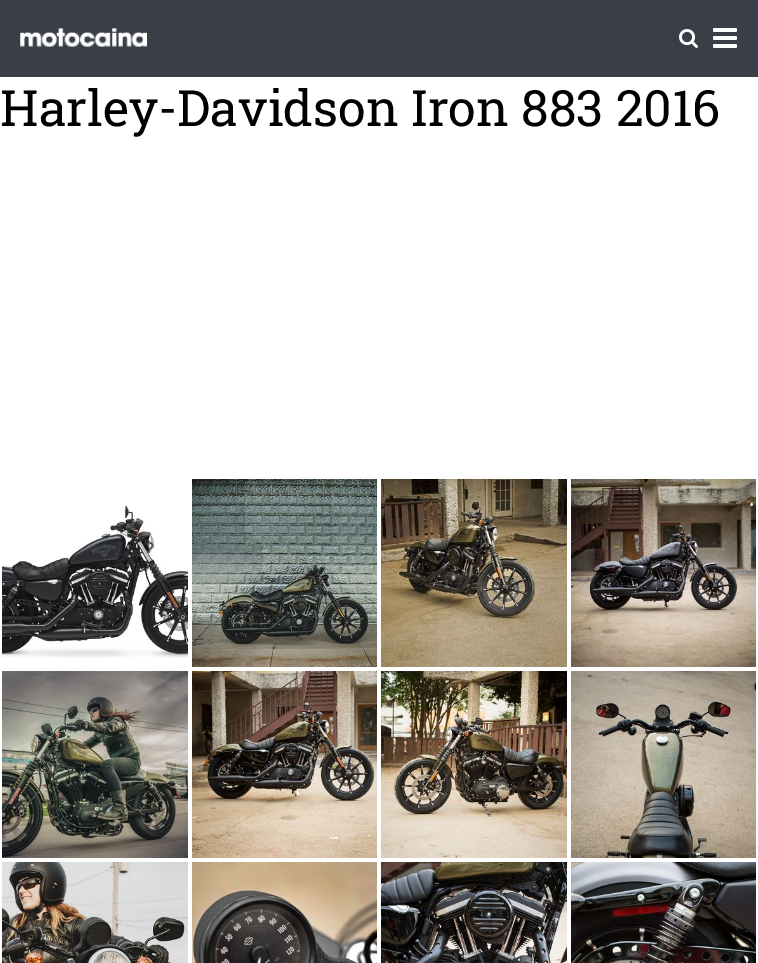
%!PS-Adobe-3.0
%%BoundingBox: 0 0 758 963
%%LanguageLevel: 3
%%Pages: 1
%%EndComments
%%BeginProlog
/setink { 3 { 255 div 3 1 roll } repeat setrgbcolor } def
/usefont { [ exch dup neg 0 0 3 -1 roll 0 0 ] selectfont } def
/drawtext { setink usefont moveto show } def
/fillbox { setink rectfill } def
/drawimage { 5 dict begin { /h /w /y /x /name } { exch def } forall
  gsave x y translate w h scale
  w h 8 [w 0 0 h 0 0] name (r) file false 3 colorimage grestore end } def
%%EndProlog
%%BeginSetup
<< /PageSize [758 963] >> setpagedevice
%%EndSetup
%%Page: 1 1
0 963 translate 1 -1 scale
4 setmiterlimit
0 0 758 963 255 255 255 fillbox
0 0 758 77 58 63 71 fillbox
(assets/img1.rgb) 20 28 127 19 drawimage
(assets/img2.rgb) 679 29 19 19 drawimage
(assets/img3.rgb) 713 28 24 20 drawimage
(Harley-Davidson Iron 883 2016) 0 126 /RobotoSlab-Regular 50 0 0 0 drawtext
(assets/img4.rgb) 2 504 186 154 drawimage
(assets/img5.rgb) 192 479 185 188 drawimage
(assets/img6.rgb) 381 479 186 188 drawimage
(assets/img7.rgb) 571 479 185 188 drawimage
(assets/img8.rgb) 2 671 186 187 drawimage
(assets/img9.rgb) 192 671 185 187 drawimage
(assets/img10.rgb) 381 671 186 187 drawimage
(assets/img11.rgb) 571 671 185 187 drawimage
(assets/img12.rgb) 2 862 186 101 drawimage
(assets/img13.rgb) 192 862 185 101 drawimage
(assets/img14.rgb) 381 862 186 101 drawimage
(assets/img15.rgb) 571 862 185 101 drawimage
showpage
%%EOF
